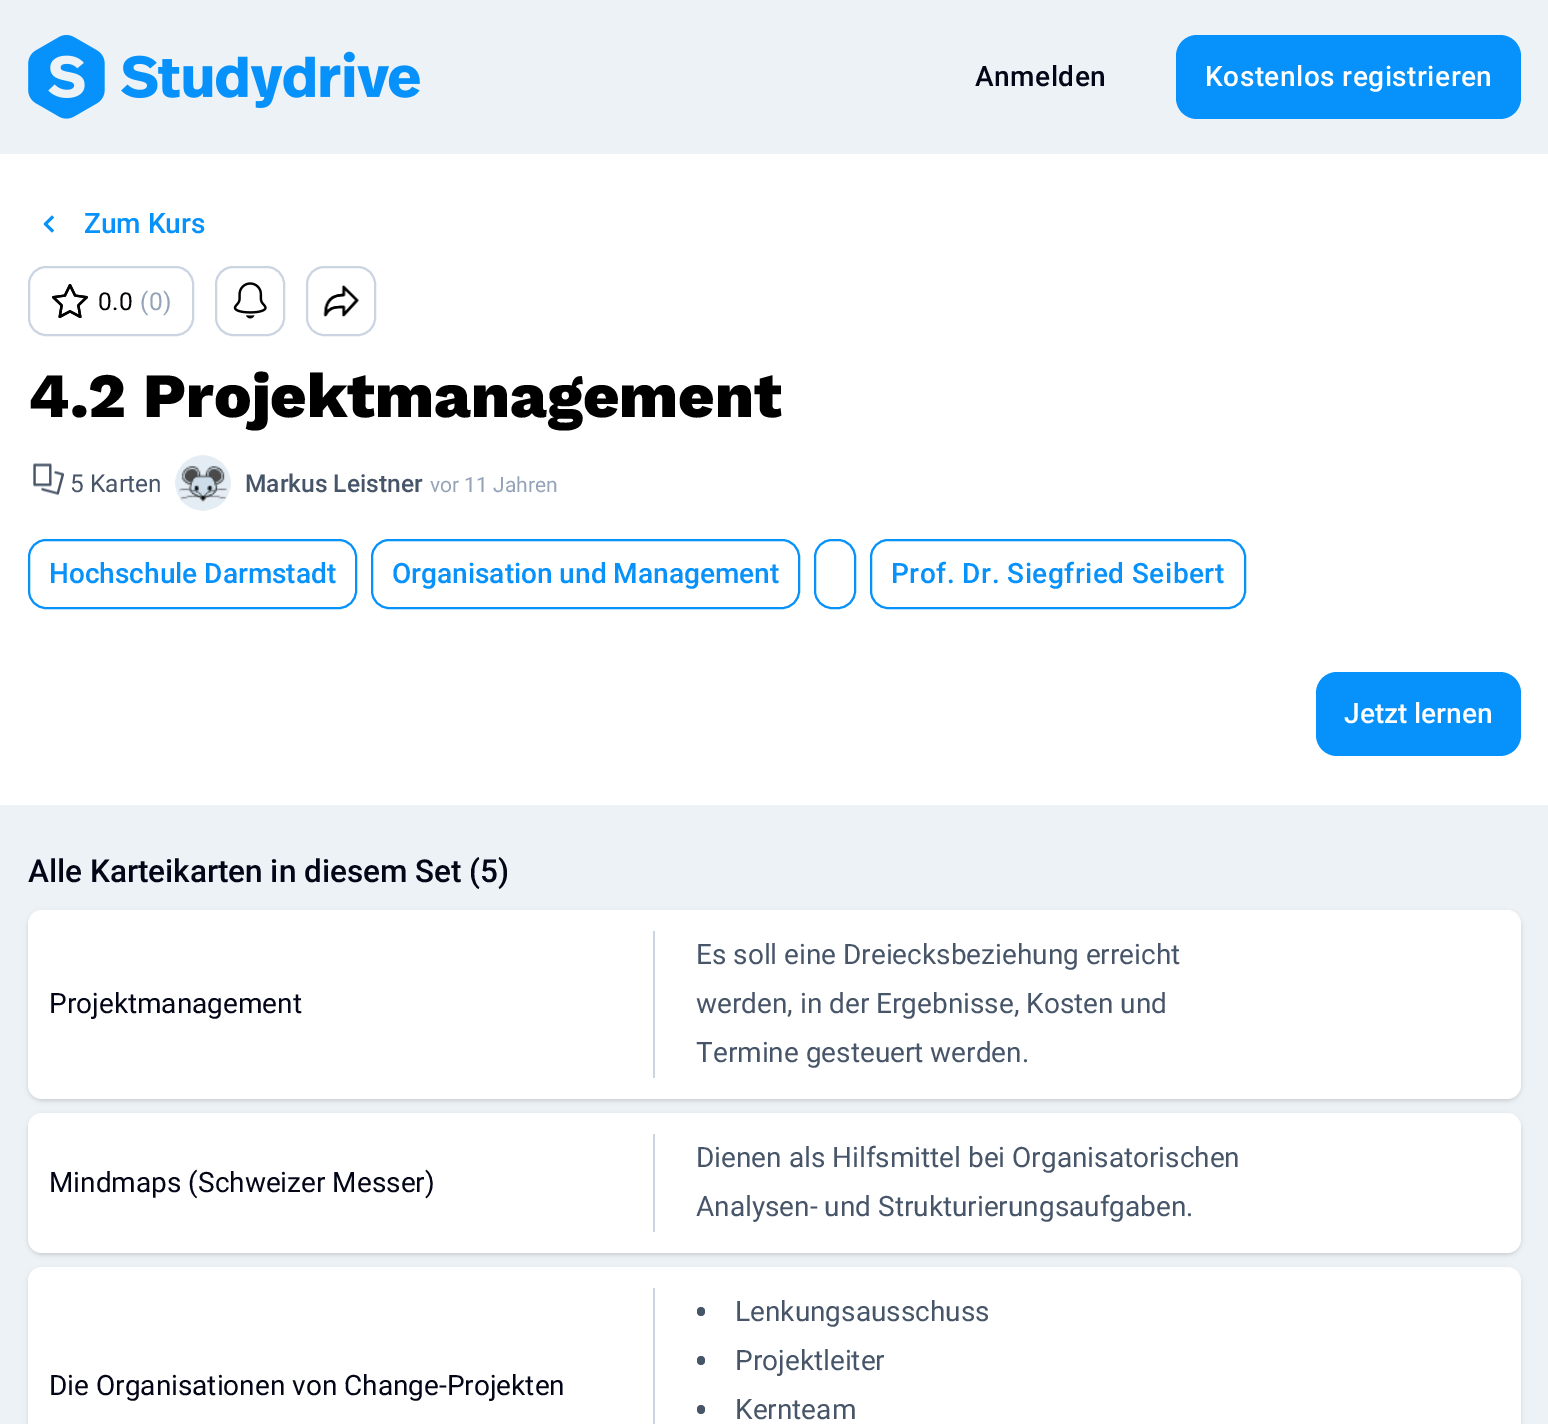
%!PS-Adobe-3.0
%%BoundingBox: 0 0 1548 1424
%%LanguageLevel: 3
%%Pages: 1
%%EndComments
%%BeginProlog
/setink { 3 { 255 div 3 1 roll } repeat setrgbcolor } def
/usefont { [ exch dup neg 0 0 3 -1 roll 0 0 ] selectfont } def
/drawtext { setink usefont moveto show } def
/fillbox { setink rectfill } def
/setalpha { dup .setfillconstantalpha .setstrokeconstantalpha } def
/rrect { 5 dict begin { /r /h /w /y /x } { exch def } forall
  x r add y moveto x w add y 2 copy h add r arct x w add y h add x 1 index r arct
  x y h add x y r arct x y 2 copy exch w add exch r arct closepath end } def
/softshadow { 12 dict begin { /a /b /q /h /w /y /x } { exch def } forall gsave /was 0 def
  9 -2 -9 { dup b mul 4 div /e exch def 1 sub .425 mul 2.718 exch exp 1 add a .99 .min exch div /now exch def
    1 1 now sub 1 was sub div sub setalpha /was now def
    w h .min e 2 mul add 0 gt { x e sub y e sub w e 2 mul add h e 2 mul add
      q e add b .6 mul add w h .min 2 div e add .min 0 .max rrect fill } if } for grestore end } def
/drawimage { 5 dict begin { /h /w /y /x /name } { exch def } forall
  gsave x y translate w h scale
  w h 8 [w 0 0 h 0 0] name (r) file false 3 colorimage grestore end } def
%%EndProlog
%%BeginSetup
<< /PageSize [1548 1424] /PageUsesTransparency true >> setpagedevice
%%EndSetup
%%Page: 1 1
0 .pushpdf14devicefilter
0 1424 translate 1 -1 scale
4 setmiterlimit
0 0 1548 1424 237 242 247 fillbox
(assets/img1.rgb) 28 35 392 84 drawimage
/Roboto-Medium 28 usefont
2 6 23 setink
975 86 moveto 0.5 0 (Anmelden) ashow
6 145 251 setink
1176 35 345 84 21 rrect fill
255 255 255 setink
1205 86 moveto 0.5 0 (Kostenlos registrieren) ashow
0 154 1548 651 255 255 255 fillbox
(assets/img2.rgb) 43 215 12 18 drawimage
(Zum Kurs) 84 233 /Roboto-Medium 28 6 145 251 drawtext
203 213 225 setink
2 setlinewidth
29 267 164 68 17 rrect stroke
(assets/img3.rgb) 52 284 36 34 drawimage
/Roboto-Regular 24.5 usefont
0 0 0 setink
98 310 moveto 0.5 0 (0.0) ashow
148 163 184 setink
140 310 moveto 0.5 0 (\(0\)) ashow
203 213 225 setink
216 267 68 68 17 rrect stroke
(assets/img4.rgb) 233 282 34 37 drawimage
307 267 68 68 17 rrect stroke
(assets/img5.rgb) 323 285 36 32 drawimage
(4.2 Projektmanagement) 28 417 /WorkSans-ExtraBold 63 0 0 0 drawtext
(assets/img6.rgb) 33 463 32 33 drawimage
(5 Karten) 70 492 /Roboto-Regular 24.5 71 85 105 drawtext
(assets/img7.rgb) 175 455 56 56 drawimage
(Markus Leistner) 245 492 /Roboto-Medium 24.5 71 85 105 drawtext
(vor 11 Jahren) 430 492 /Roboto-Regular 21 148 163 184 drawtext
6 145 251 setink
29 540 327 68 17 rrect stroke
(Hochschule Darmstadt) 49 583 /Roboto-Medium 28 6 145 251 drawtext
372 540 427 68 17 rrect stroke
(Organisation und Management) 392 583 /Roboto-Medium 28 6 145 251 drawtext
815 540 40 68 17 rrect stroke
871 540 374 68 17 rrect stroke
891 583 moveto 0.5 0 (Prof. Dr. Siegfried Seibert) ashow
1316 672 205 84 21 rrect fill
(Jetzt lernen) 1344 723 /Roboto-Medium 28 255 255 255 drawtext
(Alle Karteikarten in diesem Set \(5\)) 28 882 /Roboto-Medium 31.5 2 6 23 drawtext
0 0 0 setink
30 914 1489 185 12 2 0.1 softshadow
28 912 1493 189 14 2.5 0.1 softshadow
255 255 255 setink
28 910 1493 189 14 rrect fill
(Projektmanagement) 49 1013 /Roboto-Regular 28 2 6 23 drawtext
653 931 2 147 203 213 225 fillbox
(Es soll eine Dreiecksbeziehung erreicht) 696 964 /Roboto-Regular 28 71 85 105 drawtext
(werden, in der Ergebnisse, Kosten und) 696 1013 /Roboto-Regular 28 71 85 105 drawtext
(Termine gesteuert werden.) 696 1062 /Roboto-Regular 28 71 85 105 drawtext
0 0 0 setink
30 1117 1489 136 12 2 0.1 softshadow
28 1115 1493 140 14 2.5 0.1 softshadow
255 255 255 setink
28 1113 1493 140 14 rrect fill
(Mindmaps \(Schweizer Messer\)) 49 1192 /Roboto-Regular 28 2 6 23 drawtext
653 1134 2 98 203 213 225 fillbox
(Dienen als Hilfsmittel bei Organisatorischen) 696 1167 /Roboto-Regular 28 71 85 105 drawtext
(Analysen- und Strukturierungsaufgaben.) 696 1216 /Roboto-Regular 28 71 85 105 drawtext
0 0 0 setink
28 1269 1493 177 14 2.5 0.1 softshadow
255 255 255 setink
28 1267 1493 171 14 rrect fill
(Die Organisationen von Change-Projekten) 49 1395 /Roboto-Regular 28 2 6 23 drawtext
653 1288 2 136 203 213 225 fillbox
71 85 105 setink
697 1307 8 9 4 rrect fill
(Lenkungsausschuss) 735 1321 /Roboto-Regular 28 71 85 105 drawtext
697 1356 8 9 4 rrect fill
(Projektleiter) 735 1370 /Roboto-Regular 28 71 85 105 drawtext
697 1405 8 9 4 rrect fill
(Kernteam) 735 1419 /Roboto-Regular 28 71 85 105 drawtext
.poppdf14devicefilter showpage
%%EOF
